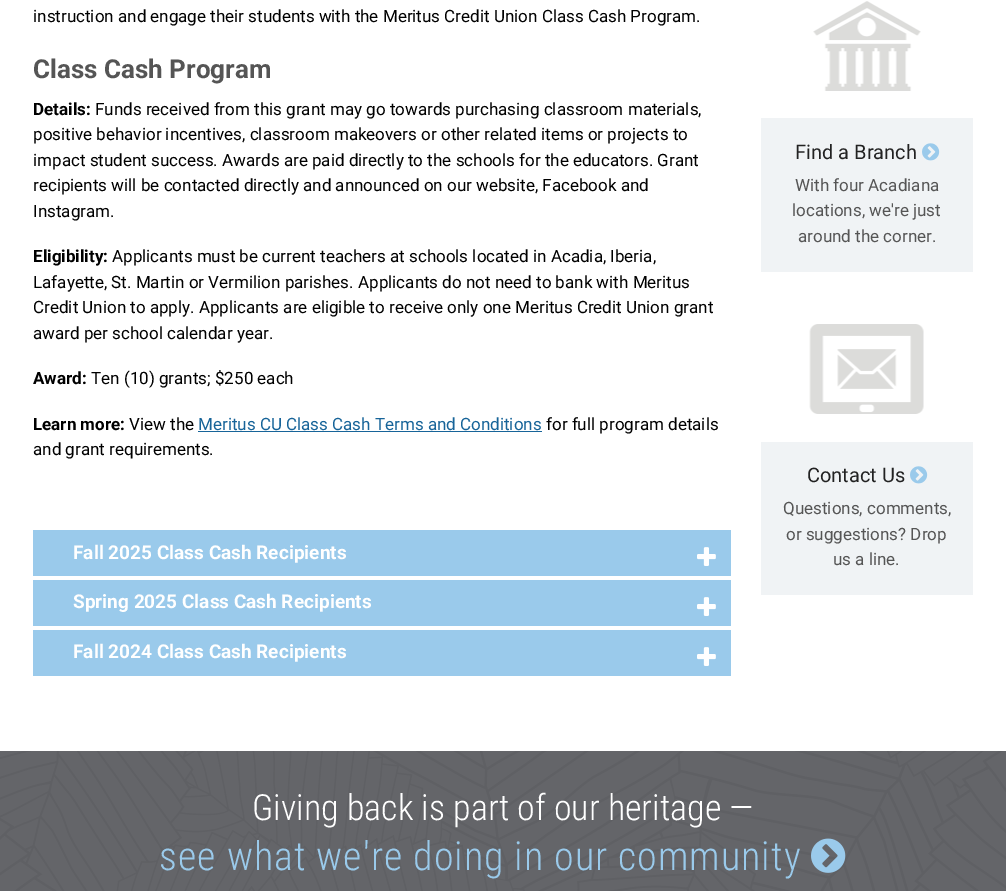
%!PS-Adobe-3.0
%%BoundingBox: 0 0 1006 891
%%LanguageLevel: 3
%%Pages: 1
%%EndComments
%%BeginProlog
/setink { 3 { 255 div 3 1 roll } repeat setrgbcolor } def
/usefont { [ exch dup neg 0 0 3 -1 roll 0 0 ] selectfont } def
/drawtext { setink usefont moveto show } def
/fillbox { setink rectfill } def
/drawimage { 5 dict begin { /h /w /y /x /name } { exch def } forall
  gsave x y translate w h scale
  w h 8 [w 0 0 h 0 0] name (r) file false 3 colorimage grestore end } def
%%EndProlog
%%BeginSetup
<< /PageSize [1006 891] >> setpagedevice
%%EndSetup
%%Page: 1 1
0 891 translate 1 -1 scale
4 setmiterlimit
0 0 1006 891 255 255 255 fillbox
(instruction and engage their students with the Meritus Credit Union Class Cash Program.) 33 22 /Roboto-Regular 17 0 0 0 drawtext
(Class Cash Program) 33 78 /Roboto-Bold 26 85 85 85 drawtext
(Details:) 33 115 /Roboto-Bold 17 0 0 0 drawtext
(Funds received from this grant may go towards purchasing classroom materials,) 95 115 /Roboto-Regular 17 0 0 0 drawtext
(positive behavior incentives, classroom makeovers or other related items or projects to) 33 140 /Roboto-Regular 17 0 0 0 drawtext
(impact student success. Awards are paid directly to the schools for the educators. Grant) 33 166 /Roboto-Regular 17 0 0 0 drawtext
(recipients will be contacted directly and announced on our website, Facebook and) 33 191 /Roboto-Regular 17 0 0 0 drawtext
(Instagram.) 33 217 /Roboto-Regular 17 0 0 0 drawtext
(Eligibility:) 33 262 /Roboto-Bold 17 0 0 0 drawtext
(Applicants must be current teachers at schools located in Acadia, Iberia,) 112 262 /Roboto-Regular 17 0 0 0 drawtext
(Lafayette, St. Martin or Vermilion parishes. Applicants do not need to bank with Meritus) 33 288 /Roboto-Regular 17 0 0 0 drawtext
(Credit Union to apply. Applicants are eligible to receive only one Meritus Credit Union grant) 33 313 /Roboto-Regular 17 0 0 0 drawtext
(award per school calendar year.) 33 339 /Roboto-Regular 17 0 0 0 drawtext
(Award:) 33 384 /Roboto-Bold 17 0 0 0 drawtext
(Ten \(10\) grants; $250 each) 91 384 /Roboto-Regular 17 0 0 0 drawtext
(Learn more:) 33 430 /Roboto-Bold 17 0 0 0 drawtext
(View the) 129 430 /Roboto-Regular 17 0 0 0 drawtext
(Meritus CU Class Cash Terms and Conditions) 198 430 /Roboto-Regular 17 23 100 153 drawtext
198 431 344 1 23 100 153 fillbox
(for full program details) 546 430 /Roboto-Regular 17 0 0 0 drawtext
(and grant requirements.) 33 455 /Roboto-Regular 17 0 0 0 drawtext
33 530 698 46 154 202 235 fillbox
(Fall 2025 Class Cash Recipients) 73 559 /Roboto-Bold 19 255 255 255 drawtext
(assets/img1.rgb) 697 547 19 19 drawimage
33 580 698 46 154 202 235 fillbox
(Spring 2025 Class Cash Recipients) 73 608 /Roboto-Bold 19 255 255 255 drawtext
(assets/img1.rgb) 697 597 19 19 drawimage
33 630 698 46 154 202 235 fillbox
(Fall 2024 Class Cash Recipients) 73 658 /Roboto-Bold 19 255 255 255 drawtext
(assets/img1.rgb) 697 647 19 19 drawimage
761 118 212 154 240 243 245 fillbox
(assets/img2.rgb) 813 1 108 90 drawimage
(Find a Branch) 795 159 /Roboto-Regular 20 34 34 34 drawtext
(assets/img3.rgb) 922 143 18 18 drawimage
(With four Acadiana) 795 191 /Roboto-Regular 17 85 85 85 drawtext
(locations, we're just) 792 216 /Roboto-Regular 17 85 85 85 drawtext
(around the corner.) 798 242 /Roboto-Regular 17 85 85 85 drawtext
761 442 212 153 240 243 245 fillbox
(assets/img4.rgb) 809 324 115 90 drawimage
(Contact Us) 807 482 /Roboto-Regular 20 34 34 34 drawtext
(assets/img3.rgb) 910 466 18 18 drawimage
(Questions, comments,) 783 514 /Roboto-Regular 17 85 85 85 drawtext
(or suggestions? Drop) 786 540 /Roboto-Regular 17 85 85 85 drawtext
(us a line.) 833 565 /Roboto-Regular 17 85 85 85 drawtext
(assets/img5.rgb) 0 751 1006 140 drawimage
(Giving back is part of our heritage —) 252 820 /RobotoCondensed-Light 36 255 255 255 drawtext
/RobotoCondensed-Light 40 usefont
154 202 235 setink
159 870 moveto 1 0 (see what we're doing in our community) ashow
(assets/img6.rgb) 811 838 35 35 drawimage
showpage
%%EOF
